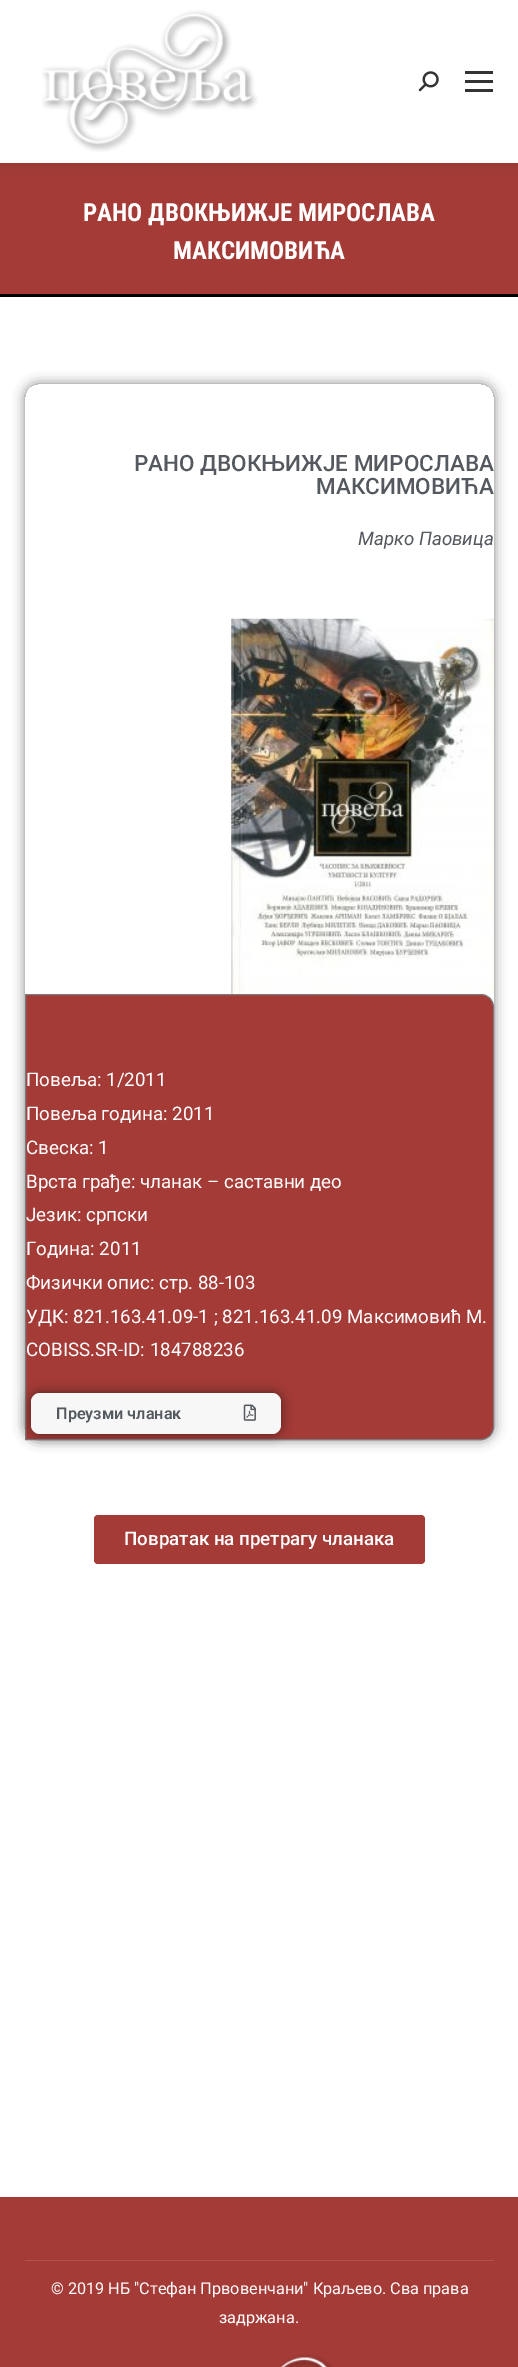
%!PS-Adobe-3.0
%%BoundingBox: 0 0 518 2367
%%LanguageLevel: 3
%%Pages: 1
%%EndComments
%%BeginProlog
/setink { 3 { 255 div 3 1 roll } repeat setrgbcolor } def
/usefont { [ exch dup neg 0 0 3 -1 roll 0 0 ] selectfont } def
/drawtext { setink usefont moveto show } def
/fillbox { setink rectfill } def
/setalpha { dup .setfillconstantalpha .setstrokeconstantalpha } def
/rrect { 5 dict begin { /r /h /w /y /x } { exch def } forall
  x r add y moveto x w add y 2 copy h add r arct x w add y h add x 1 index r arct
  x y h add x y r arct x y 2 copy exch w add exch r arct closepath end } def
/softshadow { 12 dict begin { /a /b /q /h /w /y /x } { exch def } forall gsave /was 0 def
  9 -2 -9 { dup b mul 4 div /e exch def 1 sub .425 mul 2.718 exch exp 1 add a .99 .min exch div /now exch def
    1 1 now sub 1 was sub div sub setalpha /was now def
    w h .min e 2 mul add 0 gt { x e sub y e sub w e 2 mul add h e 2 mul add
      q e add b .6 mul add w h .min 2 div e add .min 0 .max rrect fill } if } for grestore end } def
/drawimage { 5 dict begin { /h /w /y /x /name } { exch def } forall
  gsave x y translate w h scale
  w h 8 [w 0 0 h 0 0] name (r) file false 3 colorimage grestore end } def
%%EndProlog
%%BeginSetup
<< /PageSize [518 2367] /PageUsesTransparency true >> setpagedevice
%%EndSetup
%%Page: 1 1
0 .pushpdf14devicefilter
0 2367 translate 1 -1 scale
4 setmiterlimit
0 0 518 2367 164 59 55 fillbox
0 0 0 setink
-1 -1 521 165 0 9.5 0.07 softshadow
0 0 518 163 255 255 255 fillbox
(assets/img1.rgb) 42 10 216 142 drawimage
(assets/img2.rgb) 418 71 21 21 drawimage
465 71 28 3 51 51 51 fillbox
465 80 28 3 51 51 51 fillbox
465 89 28 3 51 51 51 fillbox
0 294 518 3 0 0 0 fillbox
(РАНО ДВОКЊИЖЈЕ МИРОСЛАВА) 83 221 /RobotoCondensed-Bold 25 255 255 255 drawtext
(МАКСИМОВИЋА) 173 259 /RobotoCondensed-Bold 25 255 255 255 drawtext
0 297 518 1900 255 255 255 fillbox
gsave
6 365 moveto 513 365 lineto 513 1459 lineto 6 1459 lineto closepath 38 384 moveto 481 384 lineto 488 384 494 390 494 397 curveto 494 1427 lineto 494 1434 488 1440 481 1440 curveto 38 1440 lineto 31 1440 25 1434 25 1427 curveto 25 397 lineto 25 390 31 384 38 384 curveto closepath eoclip newpath
0 0 0 setink
25 384 469 1056 13 6 0.5 softshadow
grestore
(РАНО ДВОКЊИЖЈЕ МИРОСЛАВА) 134 471 /Roboto-Medium 22.5 84 89 95 drawtext
(МАКСИМОВИЋА) 316 494 /Roboto-Medium 22.5 84 89 95 drawtext
(Марко Паовица) 358 545 /Roboto-Italic 18.75 84 89 95 drawtext
(assets/img3.rgb) 231 618 263 376 drawimage
164 59 55 setink
25.5 994.5 moveto 481 994.5 lineto 488 994.5 493.5 1000 493.5 1007 curveto 493.5 1427 lineto 493.5 1434 488 1439.5 481 1439.5 curveto 25.5 1439.5 lineto closepath gsave fill grestore
122 122 122 setink
stroke
(Повеља: 1/2011) 26 1086 /Roboto-Regular 18.75 255 255 255 drawtext
(Повеља година: 2011) 26 1120 /Roboto-Regular 18.75 255 255 255 drawtext
(Свеска: 1) 26 1154 /Roboto-Regular 18.75 255 255 255 drawtext
(Врста грађе: чланак – саставни део) 26 1188 /Roboto-Regular 18.75 255 255 255 drawtext
(Језик: српски) 26 1221 /Roboto-Regular 18.75 255 255 255 drawtext
(Година: 2011) 26 1255 /Roboto-Regular 18.75 255 255 255 drawtext
(Физички опис: стр. 88-103) 26 1289 /Roboto-Regular 18.75 255 255 255 drawtext
(УДК: 821.163.41.09-1 ; 821.163.41.09 Максимовић М.) 26 1323 /Roboto-Regular 18.75 255 255 255 drawtext
(COBISS.SR-ID: 184788236) 26 1356 /Roboto-Regular 18.75 255 255 255 drawtext
0 0 0 setink
31 1393 250 41 9 6 0.5 softshadow
247 247 247 setink
31 1393 250 41 9 rrect fill
(Преузми чланак) 56 1419 /Roboto-SemiBold 16.25 84 89 95 drawtext
(assets/img4.rgb) 243 1404 13 17 drawimage
164 59 55 setink
94 1515 331 49 4 rrect fill
(Повратак на претрагу чланака) 124 1545 /Roboto-Medium 18.75 255 255 255 drawtext
25 2260 469 1 175 83 79 fillbox
(© 2019 НБ "Стефан Првовенчани" Краљево. Сва права) 51 2294 /Roboto-Regular 16.25 255 255 255 drawtext
(задржана.) 219 2323 /Roboto-Regular 16.25 255 255 255 drawtext
(assets/img5.rgb) 280 2354 54 13 drawimage
.poppdf14devicefilter showpage
%%EOF
